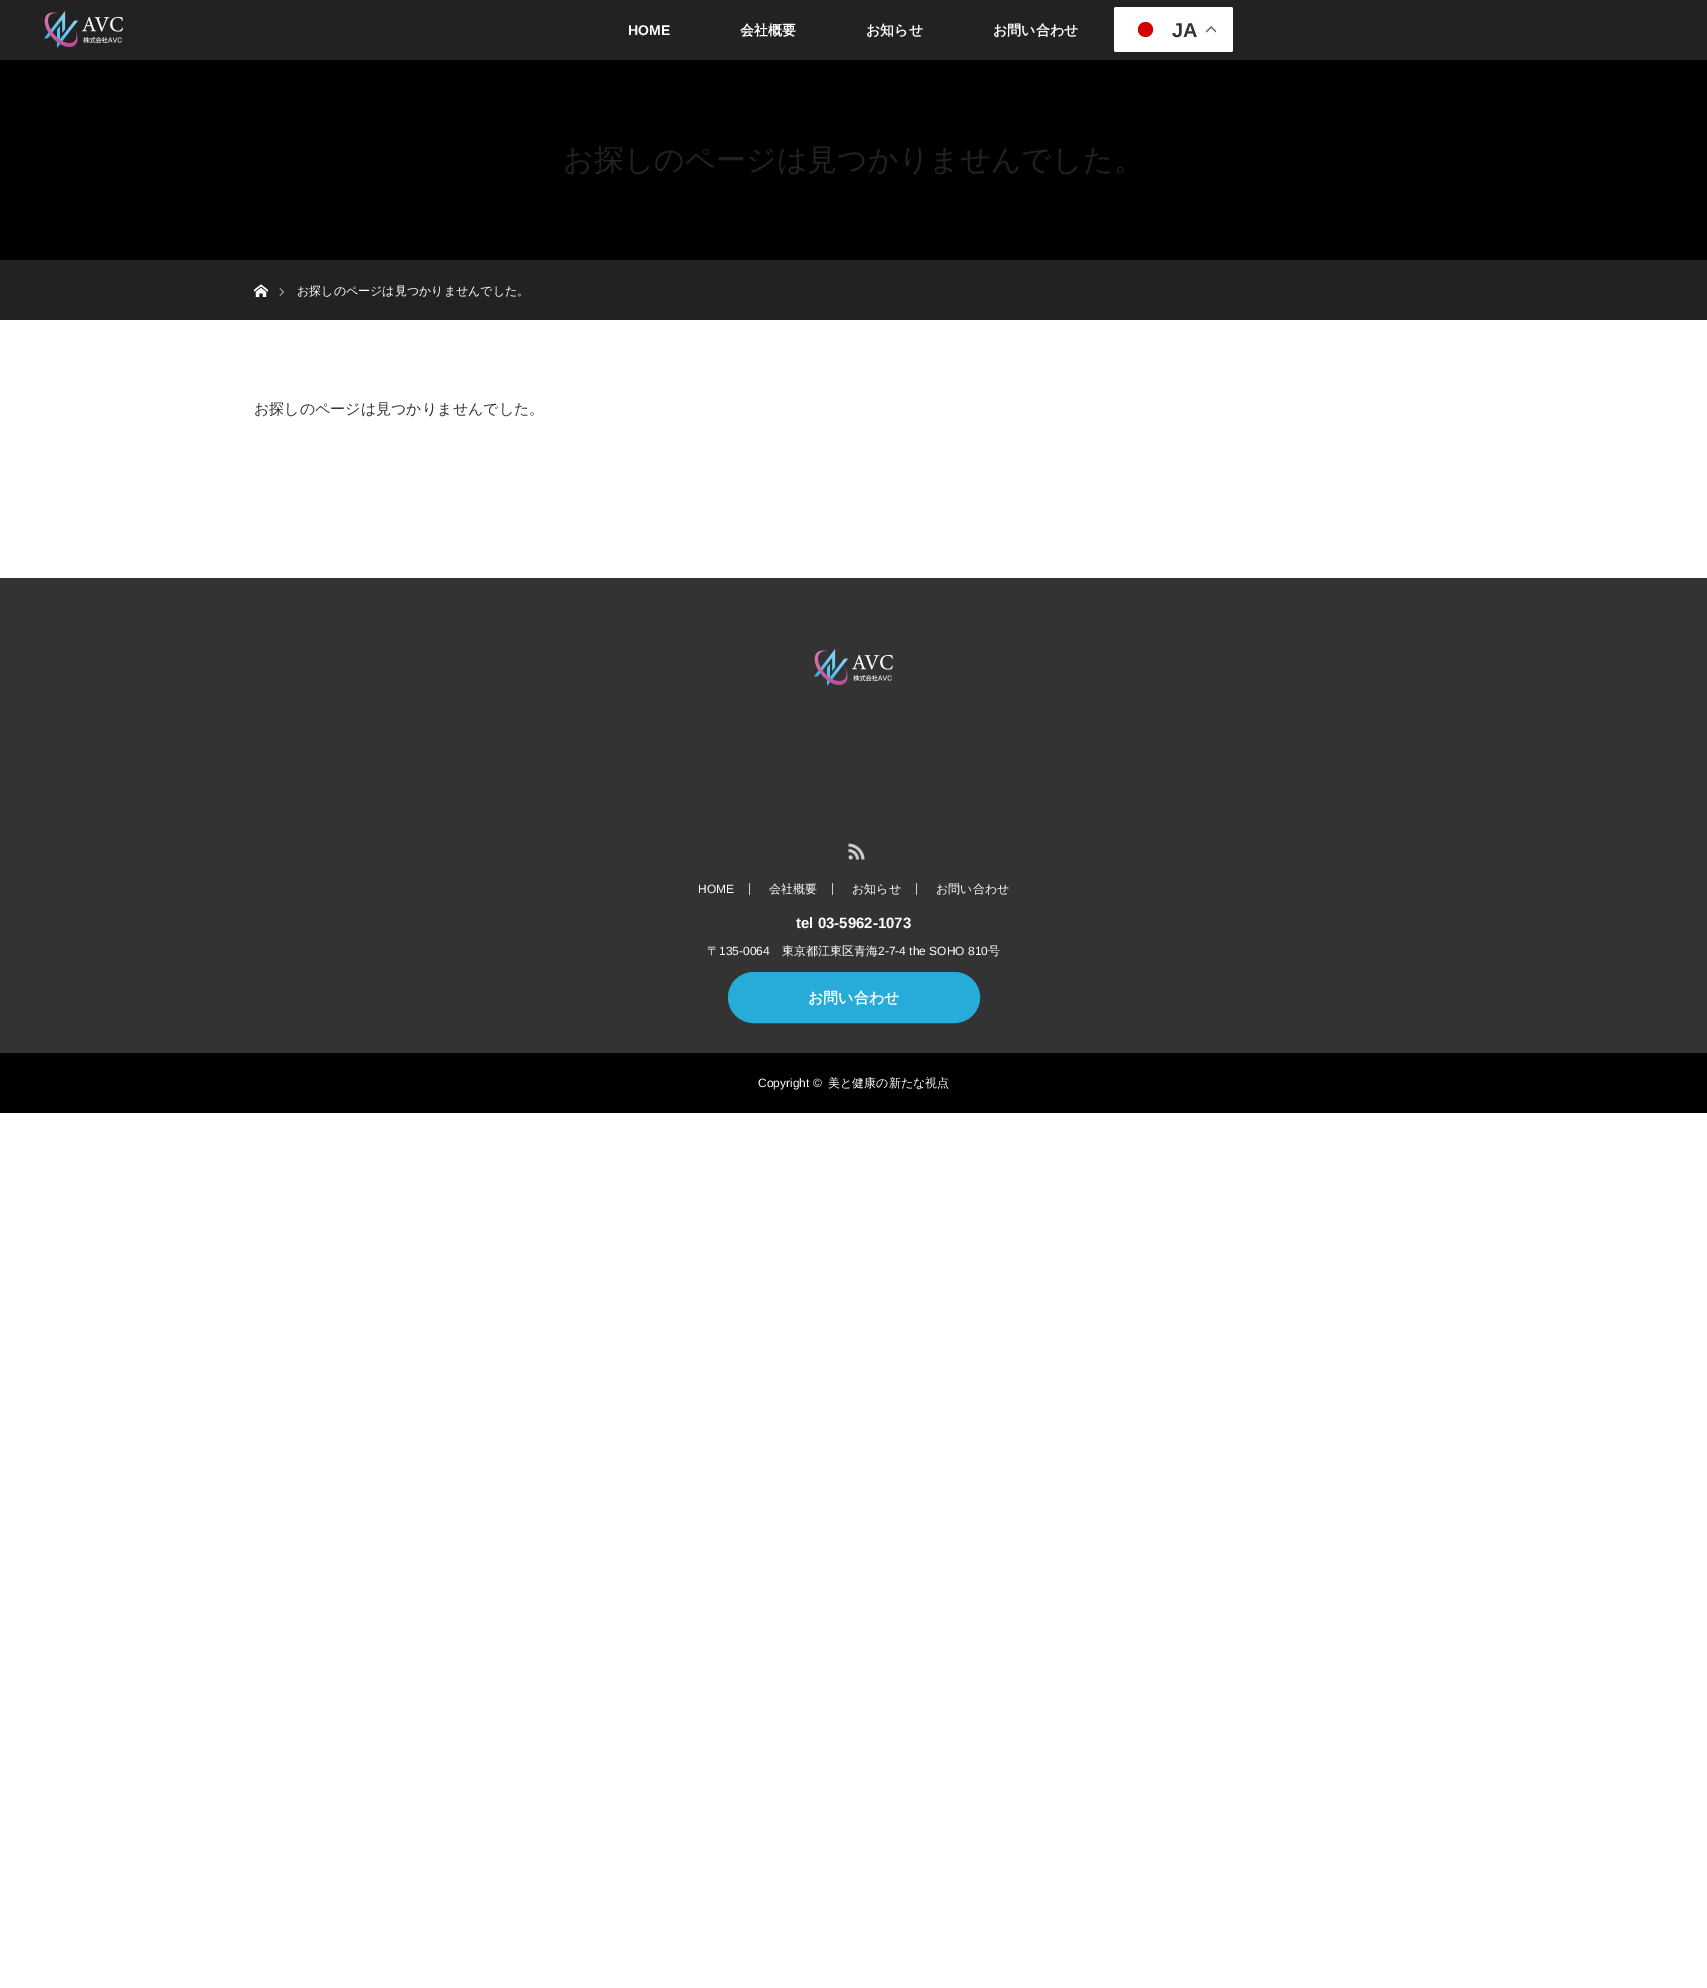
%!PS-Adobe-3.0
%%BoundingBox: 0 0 1707 1988
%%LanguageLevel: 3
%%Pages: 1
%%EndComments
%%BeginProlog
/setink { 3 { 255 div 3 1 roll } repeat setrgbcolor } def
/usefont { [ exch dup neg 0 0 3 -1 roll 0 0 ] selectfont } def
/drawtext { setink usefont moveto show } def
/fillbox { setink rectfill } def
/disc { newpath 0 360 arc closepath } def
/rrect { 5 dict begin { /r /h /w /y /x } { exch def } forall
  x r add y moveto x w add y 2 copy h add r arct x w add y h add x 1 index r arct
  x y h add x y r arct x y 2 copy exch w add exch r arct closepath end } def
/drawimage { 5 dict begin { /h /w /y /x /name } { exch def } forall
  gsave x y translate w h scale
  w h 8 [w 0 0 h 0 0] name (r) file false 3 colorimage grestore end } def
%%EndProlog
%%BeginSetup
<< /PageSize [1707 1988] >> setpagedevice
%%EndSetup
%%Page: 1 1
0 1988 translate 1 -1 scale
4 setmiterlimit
0 0 1707 1988 255 255 255 fillbox
0 0 1707 60 34 34 34 fillbox
(assets/img1.rgb) 44 11 79 37 drawimage
(HOME) 628 35 /LiberationSans-Bold 14 255 255 255 drawtext
(会社概要) 740 35 /WenQuanYiZenHei-Bold 14 255 255 255 drawtext
(お知らせ) 866 35 /WenQuanYiZenHei-Bold 14 255 255 255 drawtext
(お問い合わせ) 993 35 /WenQuanYiZenHei-Bold 14 255 255 255 drawtext
1114 7 119 45 2 rrect fill
211 0 0 setink
1145.5 29.5 7.5 disc fill
(JA) 1172 37 /LiberationSans-Bold 20 51 51 51 drawtext
(assets/img2.rgb) 1205 26 11 7 drawimage
0 60 1707 200 0 0 0 fillbox
(お探しのページは見つかりませんでした。) 563 170 /WenQuanYiZenHei-Medium 30 34 34 34 drawtext
0 260 1707 60 34 34 34 fillbox
(assets/img3.rgb) 254 284 14 13 drawimage
(assets/img4.rgb) 279 288 5 8 drawimage
(お探しのページは見つかりませんでした。) 297 295 /WenQuanYiZenHei-Medium 12 255 255 255 drawtext
(お探しのページは見つかりませんでした。) 254 414 /WenQuanYiZenHei-Medium 15 51 51 51 drawtext
0 578 1707 475 51 51 51 fillbox
(assets/img5.rgb) 814 649 79 37 drawimage
(assets/img6.rgb) 848 843 17 17 drawimage
749 883 1 12 204 204 204 fillbox
(HOME) 698 893 /LiberationSans-Regular 12 255 255 255 drawtext
832 883 1 12 204 204 204 fillbox
(会社概要) 769 893 /WenQuanYiZenHei-Medium 12 255 255 255 drawtext
916 883 1 12 204 204 204 fillbox
(お知らせ) 852 893 /WenQuanYiZenHei-Medium 12 255 255 255 drawtext
(お問い合わせ) 936 893 /WenQuanYiZenHei-Medium 12 255 255 255 drawtext
(tel 03-5962-1073) 796 928 /LiberationSans-Bold 15 255 255 255 drawtext
(〒) 707 955 /WenQuanYiZenHei-Medium 12 255 255 255 drawtext
(135-0064) 719 955 /LiberationSans-Regular 12 255 255 255 drawtext
(東京都江東区青海) 782 955 /WenQuanYiZenHei-Medium 12 255 255 255 drawtext
(2-7-4 the SOHO 810) 878 955 /LiberationSans-Regular 12 255 255 255 drawtext
(号) 988 955 /WenQuanYiZenHei-Medium 12 255 255 255 drawtext
39 172 217 setink
729 973 250 49 24.5 rrect gsave fill grestore
2 setlinewidth
stroke
(お問い合わせ) 808 1003 /WenQuanYiZenHei-Bold 15 255 255 255 drawtext
0 1053 1707 60 0 0 0 fillbox
(Copyright ©) 758 1087 /LiberationSans-Regular 12 255 255 255 drawtext
(美と健康の新たな視点) 828 1087 /WenQuanYiZenHei-Medium 12 255 255 255 drawtext
showpage
%%EOF
